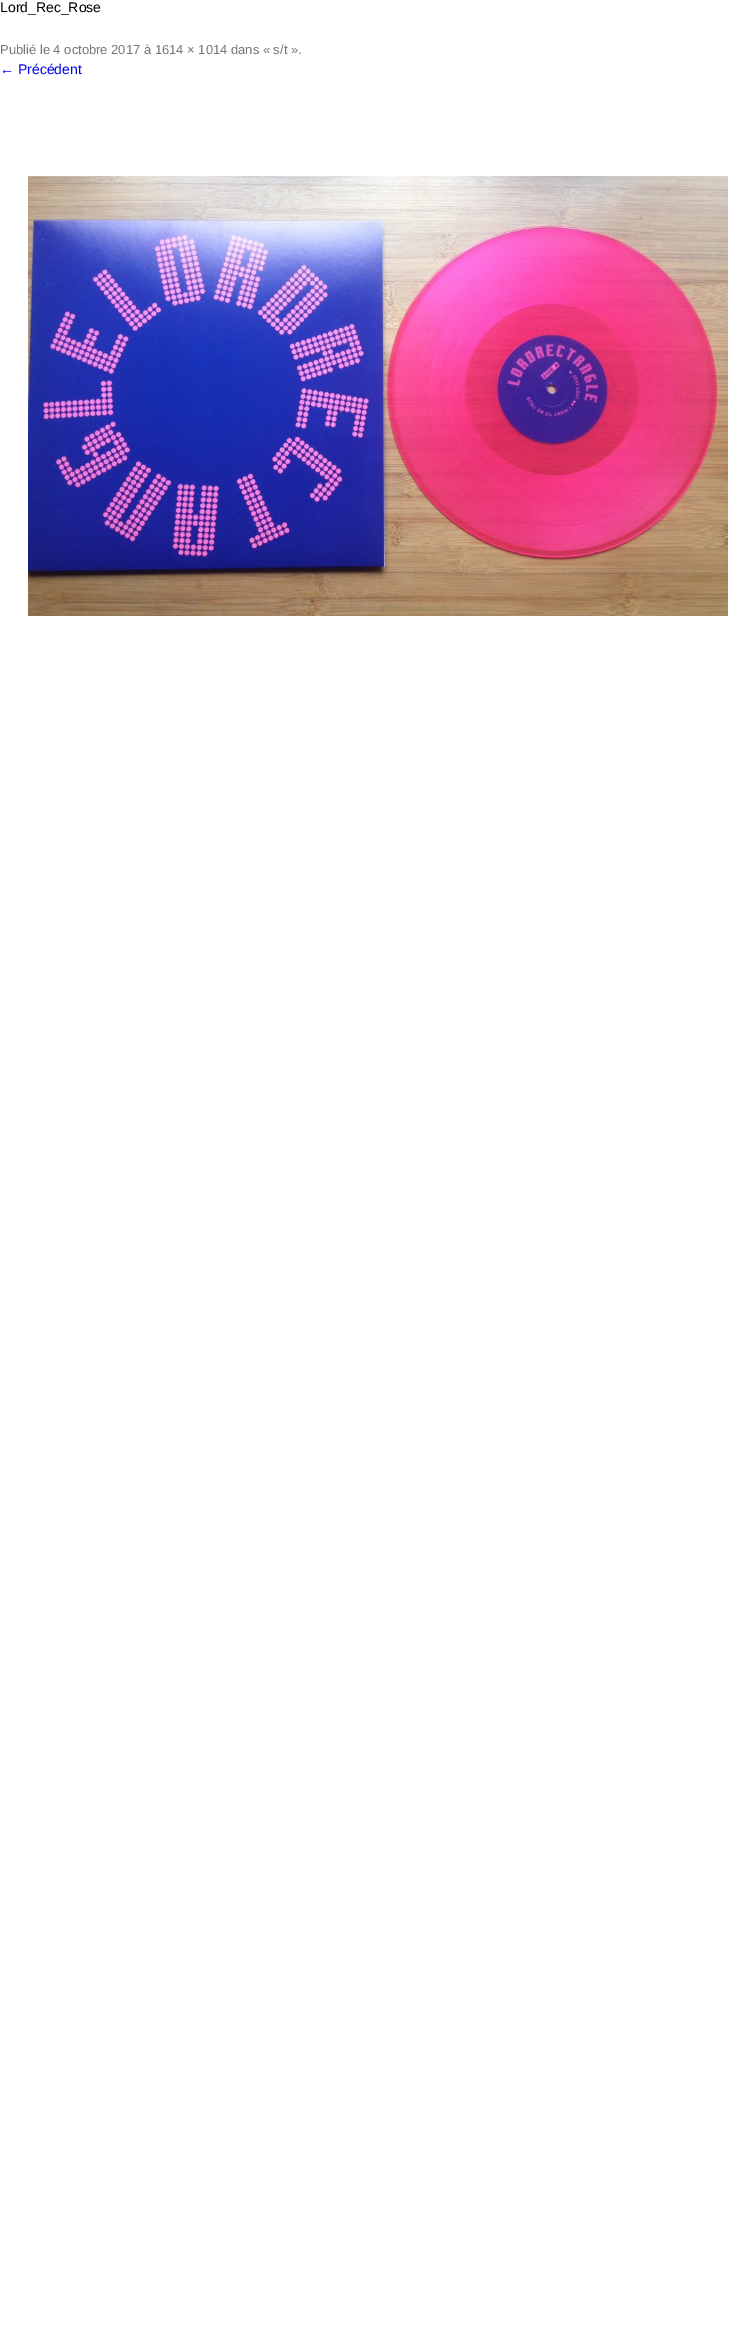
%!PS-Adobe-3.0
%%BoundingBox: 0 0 756 2335
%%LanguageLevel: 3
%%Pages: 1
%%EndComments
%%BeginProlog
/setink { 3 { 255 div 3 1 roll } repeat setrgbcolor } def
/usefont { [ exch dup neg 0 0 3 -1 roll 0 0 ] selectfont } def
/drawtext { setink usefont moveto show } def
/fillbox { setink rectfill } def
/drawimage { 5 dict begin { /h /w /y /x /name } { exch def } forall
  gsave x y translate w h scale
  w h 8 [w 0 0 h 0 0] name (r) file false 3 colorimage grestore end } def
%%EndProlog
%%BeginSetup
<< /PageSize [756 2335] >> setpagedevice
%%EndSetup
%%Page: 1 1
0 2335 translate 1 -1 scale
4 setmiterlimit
0 0 756 2335 255 255 255 fillbox
(Lord_Rec_Rose) 0 12 /LiberationSans-Regular 14 0 0 0 drawtext
(Publié le 4 octobre 2017 à 1614 × 1014 dans « s/t ».) 0 54 /LiberationSans-Regular 13 117 117 117 drawtext
(← Précédent) 0 74 /LiberationSans-Regular 14 0 0 238 drawtext
(assets/img1.rgb) 28 176 700 440 drawimage
showpage
%%EOF
